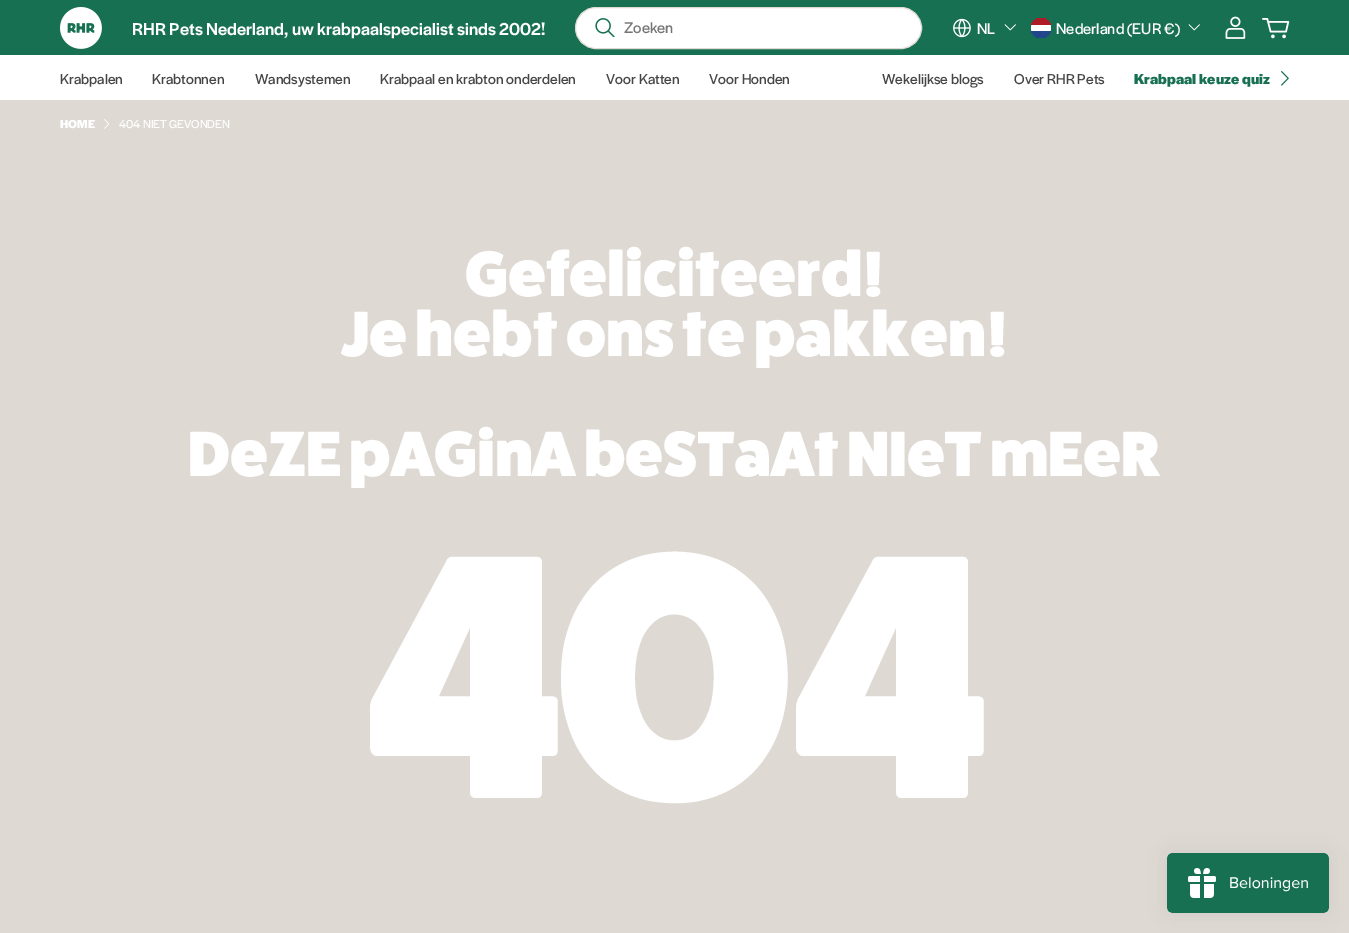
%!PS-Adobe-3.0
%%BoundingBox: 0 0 1349 933
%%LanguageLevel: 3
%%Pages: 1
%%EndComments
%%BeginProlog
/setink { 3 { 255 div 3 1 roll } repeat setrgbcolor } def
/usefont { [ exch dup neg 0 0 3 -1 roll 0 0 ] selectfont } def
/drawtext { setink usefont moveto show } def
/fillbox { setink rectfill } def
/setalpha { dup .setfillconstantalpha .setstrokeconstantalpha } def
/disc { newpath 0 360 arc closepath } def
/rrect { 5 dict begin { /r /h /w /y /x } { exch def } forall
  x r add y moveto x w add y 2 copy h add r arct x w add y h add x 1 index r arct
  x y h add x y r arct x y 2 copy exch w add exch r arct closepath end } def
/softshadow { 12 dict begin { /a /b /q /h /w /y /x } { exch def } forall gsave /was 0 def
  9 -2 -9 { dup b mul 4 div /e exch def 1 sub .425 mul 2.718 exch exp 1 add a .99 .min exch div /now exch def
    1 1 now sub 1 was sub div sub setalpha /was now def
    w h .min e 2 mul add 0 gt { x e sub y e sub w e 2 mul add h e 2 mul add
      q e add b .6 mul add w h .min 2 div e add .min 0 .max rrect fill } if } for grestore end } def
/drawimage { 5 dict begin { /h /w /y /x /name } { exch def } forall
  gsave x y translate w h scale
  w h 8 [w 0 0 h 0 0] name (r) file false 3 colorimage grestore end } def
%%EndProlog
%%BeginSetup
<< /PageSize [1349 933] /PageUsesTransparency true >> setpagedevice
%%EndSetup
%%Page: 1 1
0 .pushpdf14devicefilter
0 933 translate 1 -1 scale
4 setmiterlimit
0 0 1349 933 222 217 211 fillbox
0 0 1349 55 24 112 83 fillbox
(assets/img1.rgb) 60 7 42 42 drawimage
(RHR Pets Nederland, uw krabpaalspecialist sinds 2002!) 132 35 /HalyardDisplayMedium-Medium 18 255 255 255 drawtext
575.5 7.5 346 41 20.5 rrect gsave fill grestore
222 217 211 setink
stroke
(assets/img2.rgb) 595 18 20 19 drawimage
(Zoeken) 624 33 /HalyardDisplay-Regular 16 117 117 117 drawtext
(assets/img3.rgb) 953 18 18 20 drawimage
(NL) 977 34 /HalyardDisplay-Regular 16 255 255 255 drawtext
(assets/img4.rgb) 1004 24 12 7 drawimage
1041 28 10 disc fill
gsave
1031 18 20 20 10 rrect clip newpath
1031 31 20 7 33 70 139 fillbox
1031 18 20 7 174 28 40 fillbox
grestore
(Nederland \(EUR €\)) 1056 34 /HalyardDisplay-Regular 16 255 255 255 drawtext
(assets/img4.rgb) 1188 24 12 7 drawimage
(assets/img5.rgb) 1225 16 21 23 drawimage
(assets/img6.rgb) 1262 18 28 21 drawimage
0 55 1349 45 255 255 255 fillbox
(Krabpalen) 60 84 /HalyardDisplay-Regular 15 69 69 69 drawtext
(Krabtonnen) 152 84 /HalyardDisplay-Regular 15 69 69 69 drawtext
(Wandsystemen) 255 84 /HalyardDisplay-Regular 15 69 69 69 drawtext
(Krabpaal en krabton onderdelen) 380 84 /HalyardDisplay-Regular 15 69 69 69 drawtext
(Voor Katten) 606 84 /HalyardDisplay-Regular 15 69 69 69 drawtext
(Voor Honden) 709 84 /HalyardDisplay-Regular 15 69 69 69 drawtext
(Wekelijkse blogs) 882 84 /HalyardDisplay-Regular 15 69 69 69 drawtext
(Over RHR Pets) 1014 84 /HalyardDisplay-Regular 15 69 69 69 drawtext
(Krabpaal keuze quiz) 1134 84 /HalyardDisplay-Bold 15 24 112 83 drawtext
(assets/img7.rgb) 1281 71 8 15 drawimage
(HOME) 60 128 /HalyardDisplay-Bold 12 255 255 255 drawtext
(assets/img8.rgb) 104 119 5 10 drawimage
(404 NIET GEVONDEN) 119 128 /HalyardDisplay-Regular 12 255 255 255 drawtext
(Gefeliciteerd!) 465 296 /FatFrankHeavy-Black 64 255 255 255 drawtext
(Je hebt ons te pakken!) 340 356 /FatFrankHeavy-Black 64 255 255 255 drawtext
(DeZE pAGinA beSTaAt NIeT mEeR) 188 476 /FatFrankHeavy-Black 64 255 255 255 drawtext
(404) 361 798 /FatFrankHeavy-Black 350 255 255 255 drawtext
0 0 0 setink
1167 853 162 60 5 12.5 0.05 softshadow
(assets/img9.rgb) 1167 853 162 60 drawimage
.poppdf14devicefilter showpage
%%EOF
